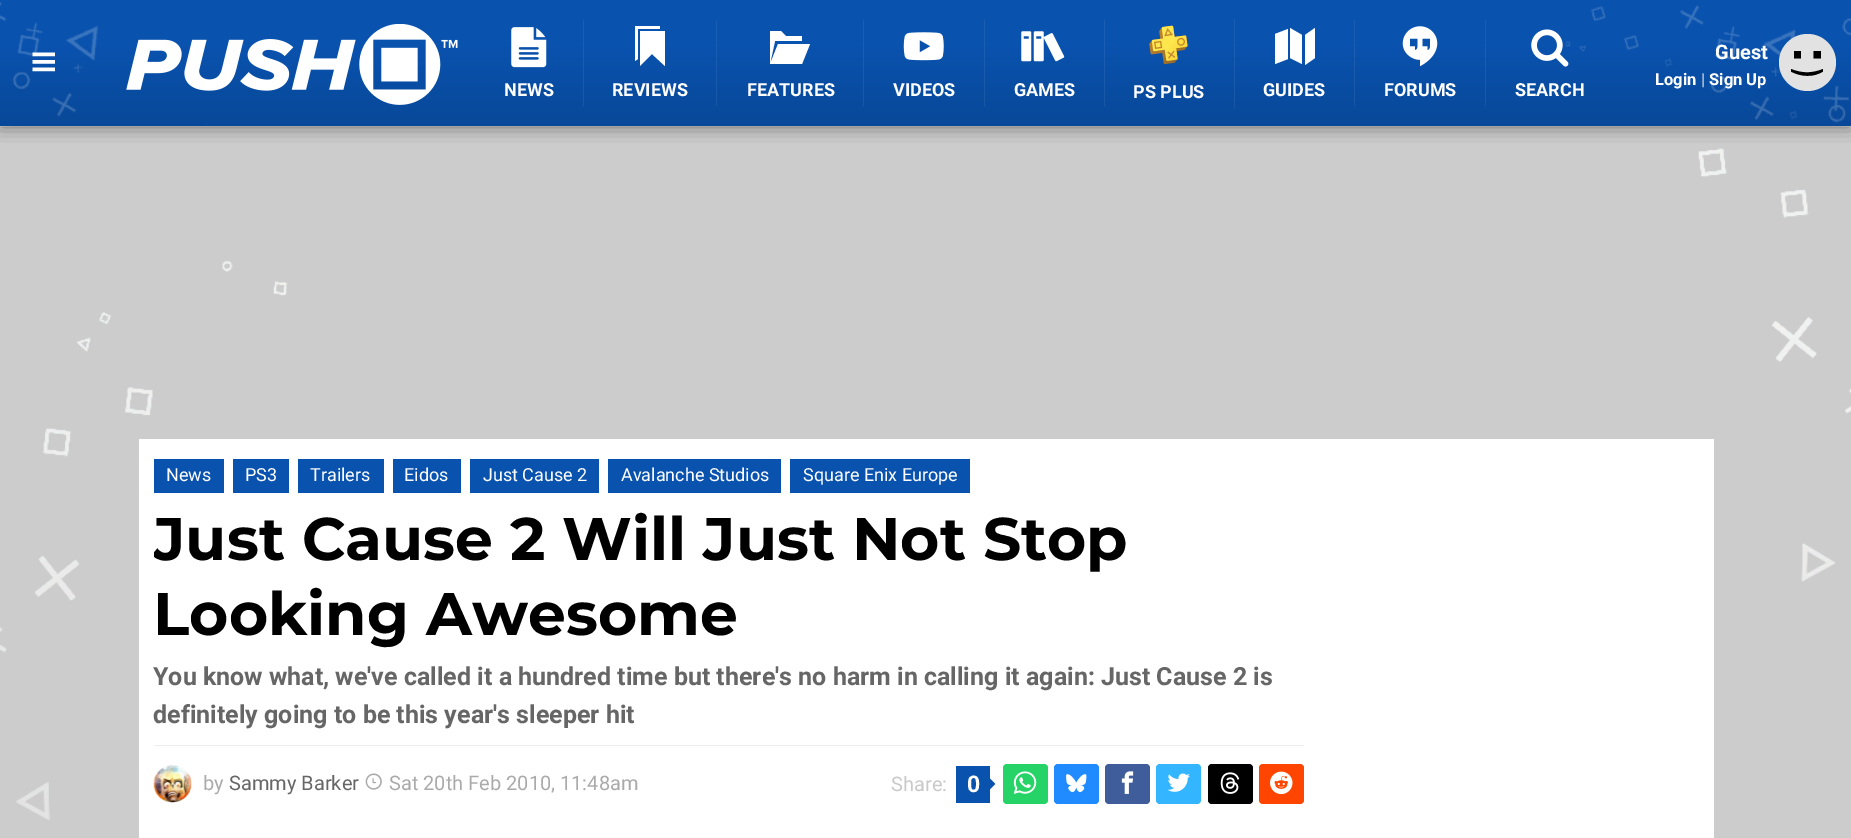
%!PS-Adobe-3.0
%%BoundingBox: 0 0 1851 838
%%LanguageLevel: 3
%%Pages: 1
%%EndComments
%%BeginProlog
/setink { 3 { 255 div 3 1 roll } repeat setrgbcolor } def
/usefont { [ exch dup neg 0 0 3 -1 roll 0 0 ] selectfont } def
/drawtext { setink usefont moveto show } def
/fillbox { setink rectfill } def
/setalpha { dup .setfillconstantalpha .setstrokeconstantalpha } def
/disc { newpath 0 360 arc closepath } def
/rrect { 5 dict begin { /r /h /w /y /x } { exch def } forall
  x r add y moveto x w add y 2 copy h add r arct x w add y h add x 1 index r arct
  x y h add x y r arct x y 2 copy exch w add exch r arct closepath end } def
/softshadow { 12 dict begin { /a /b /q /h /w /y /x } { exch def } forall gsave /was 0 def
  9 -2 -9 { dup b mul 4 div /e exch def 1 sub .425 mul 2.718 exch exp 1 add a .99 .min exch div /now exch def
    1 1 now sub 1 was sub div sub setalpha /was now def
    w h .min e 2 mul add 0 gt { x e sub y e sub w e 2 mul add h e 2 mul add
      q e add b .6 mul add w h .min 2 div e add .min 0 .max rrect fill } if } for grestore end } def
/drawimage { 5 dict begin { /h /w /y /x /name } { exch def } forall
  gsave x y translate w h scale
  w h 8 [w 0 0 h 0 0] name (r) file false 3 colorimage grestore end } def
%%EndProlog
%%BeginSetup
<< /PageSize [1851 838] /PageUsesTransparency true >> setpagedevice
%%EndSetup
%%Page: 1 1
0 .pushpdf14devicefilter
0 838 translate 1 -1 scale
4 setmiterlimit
0 0 1851 838 204 204 204 fillbox
0 0 1851 126 9 82 174 fillbox
(assets/img10.rgb) 0 148 1851 672 drawimage
gsave
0 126 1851 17 rectclip
0 0 0 setink
0 0 1851 126 0 9.5 0.5 softshadow
grestore
(assets/img1.rgb) 0 2 1851 125 drawimage
(assets/img2.rgb) 32 52 23 20 drawimage
(Guest) 1715 59 /Roboto-Bold 20 255 255 255 drawtext
226 226 226 setink
1807.5 62.5 28.5 disc fill
0 0 0 setink
1794 51 moveto 1801 51 lineto 1801 58.5 lineto 1794 58.5 lineto closepath 1813.5 51 moveto 1821 51 lineto 1821 58.5 lineto 1813.5 58.5 lineto closepath 1791 69 moveto 1802 73.5 1812 73.5 1823 69 curveto 1823 71.5 lineto 1813.5 77.5 1801 77 1791 71.5 curveto closepath fill
(Login) 1655 85 /Roboto-Bold 16.5 255 255 255 drawtext
(|) 1701 85 /Roboto-Bold 16.5 213 213 213 drawtext
(Sign Up) 1709 85 /Roboto-Bold 16.5 255 255 255 drawtext
(assets/img3.rgb) 126 24 332 81 drawimage
0.07 setalpha
583 20 1 86 255 255 255 fillbox
1 setalpha
(assets/img4.rgb) 511 27 36 41 drawimage
(NEWS) 504 96 /Roboto-Bold 18 255 255 255 drawtext
0.07 setalpha
716 20 1 86 255 255 255 fillbox
1 setalpha
640 31 moveto 640 66 lineto 652 54 lineto 665 66 lineto 665 31 lineto closepath 660 26 moveto 635 26 lineto 635 61 lineto 638 59 lineto 638 29 lineto 660 29 lineto closepath fill
(REVIEWS) 612 96 /Roboto-Bold 18 255 255 255 drawtext
0.07 setalpha
863 20 1 86 255 255 255 fillbox
1 setalpha
802 64 moveto 810 44 lineto 778 44 lineto 770 64 lineto closepath 775 41 moveto 770 64 lineto 770 31 lineto 781 31 lineto 786 36 lineto 802 36 lineto 802 41 lineto closepath fill
(FEATURES) 747 96 /Roboto-Bold 18 255 255 255 drawtext
0.07 setalpha
984 20 1 86 255 255 255 fillbox
1 setalpha
(assets/img5.rgb) 903 32 41 29 drawimage
(VIDEOS) 893 96 /Roboto-Bold 18 255 255 255 drawtext
0.07 setalpha
1104 20 1 86 255 255 255 fillbox
1 setalpha
(assets/img6.rgb) 1021 31 44 31 drawimage
(GAMES) 1014 96 /Roboto-Bold 18 255 255 255 drawtext
0.07 setalpha
1234 19 1 89 255 255 255 fillbox
1 setalpha
(assets/img7.rgb) 1149 25 39 40 drawimage
(PS PLUS) 1133 98 /Roboto-Bold 18 255 255 255 drawtext
0.07 setalpha
1354 20 1 86 255 255 255 fillbox
1 setalpha
1275 34 moveto 1288 29 lineto 1288 59 lineto 1275 64 lineto closepath 1290 28 moveto 1302 35 lineto 1302 64 lineto 1290 58 lineto closepath 1305 35 moveto 1315 28 lineto 1315 58 lineto 1305 65 lineto closepath fill
(GUIDES) 1263 96 /Roboto-Bold 18 255 255 255 drawtext
0.07 setalpha
1485 20 1 86 255 255 255 fillbox
1 setalpha
(assets/img8.rgb) 1402 26 36 41 drawimage
(FORUMS) 1384 96 /Roboto-Bold 18 255 255 255 drawtext
(assets/img9.rgb) 1531 29 38 38 drawimage
(SEARCH) 1515 96 /Roboto-Bold 18 255 255 255 drawtext
139 439 1575 399 255 255 255 fillbox
154 745 1150 1 238 238 238 fillbox
154 459 70 34 9 82 174 fillbox
(News) 166 481 /Roboto-Regular 18 255 255 255 drawtext
233 459 56 34 9 82 174 fillbox
(PS3) 245 481 /Roboto-Regular 18 255 255 255 drawtext
298 459 86 34 9 82 174 fillbox
(Trailers) 310 481 /Roboto-Regular 18 255 255 255 drawtext
393 459 68 34 9 82 174 fillbox
(Eidos) 404 481 /Roboto-Regular 18 255 255 255 drawtext
470 459 129 34 9 82 174 fillbox
(Just Cause 2) 483 481 /Roboto-Regular 18 255 255 255 drawtext
608 459 173 34 9 82 174 fillbox
(Avalanche Studios) 621 481 /Roboto-Regular 18 255 255 255 drawtext
790 459 180 34 9 82 174 fillbox
(Square Enix Europe) 803 481 /Roboto-Regular 18 255 255 255 drawtext
gsave
154 459 1150 286 rectclip
(Just Cause 2 Will Just Not Stop) 153 560 /Montserrat-Bold 60 0 0 0 drawtext
grestore
(Looking Awesome) 153 635 /Montserrat-Bold 60 0 0 0 drawtext
(You know what, we've called it a hundred time but there's no harm in calling it again: Just Cause 2 is) 153 685 /Roboto-Bold 25 102 102 102 drawtext
(definitely going to be this year's sleeper hit) 153 723 /Roboto-Bold 25 102 102 102 drawtext
(assets/img11.rgb) 153 765 39 38 drawimage
(by) 203 790 /Roboto-Regular 20 170 170 170 drawtext
(Sammy Barker) 229 790 /Roboto-Regular 20 102 102 102 drawtext
(assets/img12.rgb) 365 773 17 17 drawimage
(Sat 20th Feb 2010, 11:48am) 389 790 /Roboto-Regular 20 170 170 170 drawtext
(Share:) 891 791 /Roboto-Regular 20 201 201 201 drawtext
956 766 34 37 9 82 174 fillbox
(0) 967 792 /Roboto-Bold 23 255 255 255 drawtext
(assets/img13.rgb) 990 778 6 12 drawimage
37 211 102 setink
1003 764 45 40 4 rrect fill
(assets/img14.rgb) 1013 771 24 23 drawimage
32 139 254 setink
1054 764 45 40 4 rrect fill
(assets/img15.rgb) 1066 774 21 19 drawimage
64 93 155 setink
1105 764 45 40 4 rrect fill
(assets/img16.rgb) 1121 771 13 23 drawimage
51 181 255 setink
1156 764 45 40 4 rrect fill
(assets/img17.rgb) 1167 773 23 19 drawimage
0 0 0 setink
1208 764 45 40 4 rrect fill
(assets/img18.rgb) 1220 772 20 22 drawimage
255 69 0 setink
1259 764 45 40 4 rrect fill
(assets/img19.rgb) 1270 771 23 24 drawimage
.poppdf14devicefilter showpage
%%EOF
